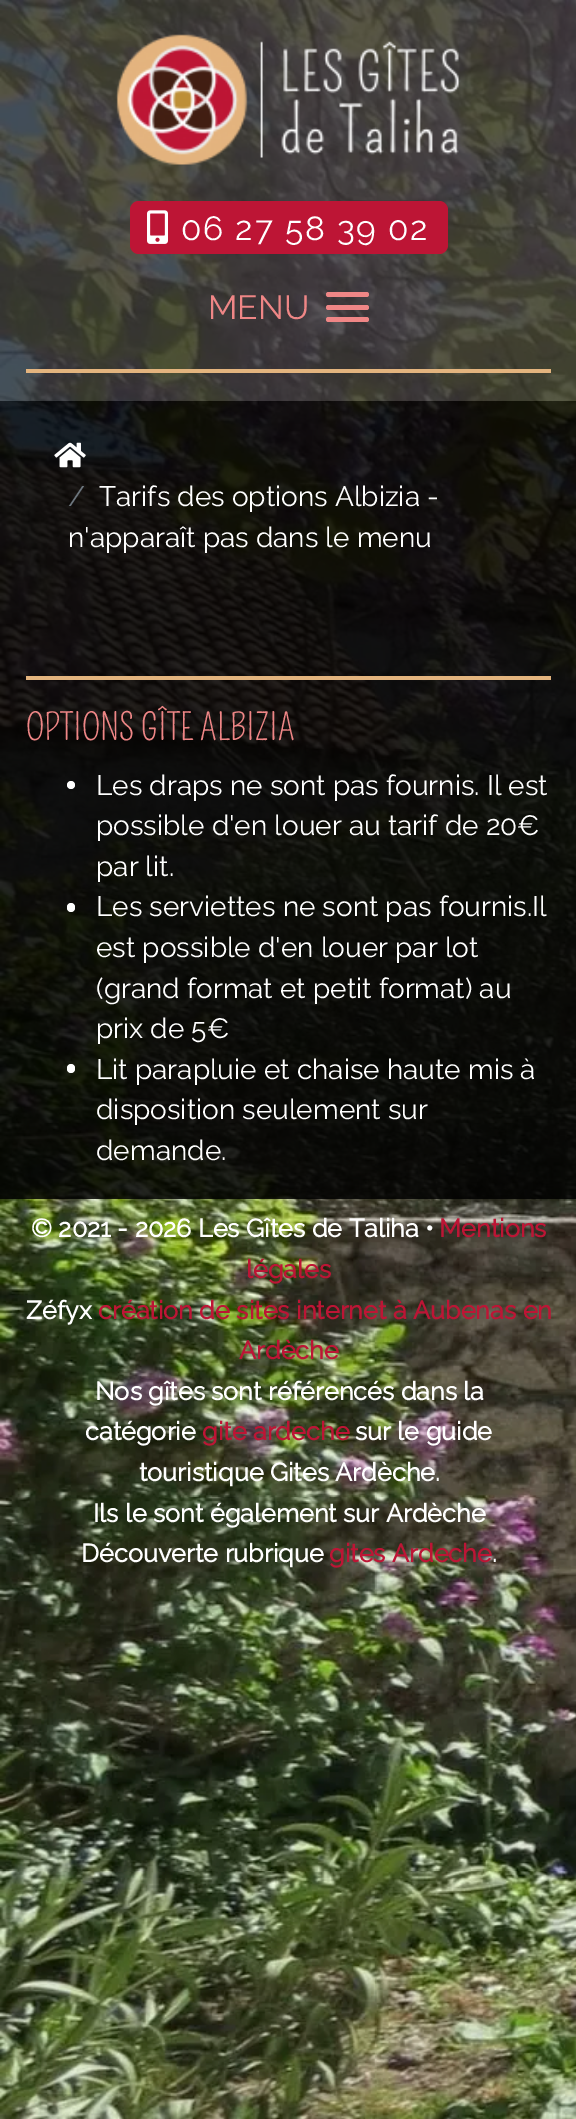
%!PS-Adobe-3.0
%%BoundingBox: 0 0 576 2119
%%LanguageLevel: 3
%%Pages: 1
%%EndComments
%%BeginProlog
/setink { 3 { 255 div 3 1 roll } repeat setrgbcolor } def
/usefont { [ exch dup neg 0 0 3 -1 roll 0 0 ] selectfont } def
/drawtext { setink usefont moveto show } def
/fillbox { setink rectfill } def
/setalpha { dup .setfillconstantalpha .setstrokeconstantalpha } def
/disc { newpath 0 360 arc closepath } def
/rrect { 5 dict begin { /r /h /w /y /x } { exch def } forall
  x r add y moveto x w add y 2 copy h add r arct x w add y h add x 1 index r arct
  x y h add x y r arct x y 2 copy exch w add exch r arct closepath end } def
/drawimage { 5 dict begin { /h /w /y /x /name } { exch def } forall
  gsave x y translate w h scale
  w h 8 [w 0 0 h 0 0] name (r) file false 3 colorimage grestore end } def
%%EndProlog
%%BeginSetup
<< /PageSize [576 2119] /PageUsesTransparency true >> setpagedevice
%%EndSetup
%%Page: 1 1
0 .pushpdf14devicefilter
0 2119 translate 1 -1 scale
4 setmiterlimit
0 0 576 2119 255 255 255 fillbox
(assets/img1.rgb) 0 0 576 2119 drawimage
0.8 setalpha
0 0 576 401 49 49 49 fillbox
1 setalpha
(assets/img2.rgb) 116 34 345 131 drawimage
189 21 53 setink
130 201 318 53 9 rrect fill
(assets/img3.rgb) 147 210 21 34 drawimage
/Raleway-Thin 33.5 usefont
255 255 255 setink
181 240 moveto 1.75 0 (06 27 58 39 02) ashow
(MENU) 208 319 /Raleway-Thin 33.5 239 134 134 drawtext
326 305 43 5 2.5 rrect fill
326 292 43 5 2.5 rrect fill
326 317 43 5 2.5 rrect fill
26 369 525 4 227 180 126 fillbox
0.85 setalpha
0 401 576 798 0 0 0 fillbox
1 setalpha
(assets/img4.rgb) 54 442 32 26 drawimage
(/) 68 506 /Raleway-Thin 28 108 117 125 drawtext
(Tarifs des options Albizia -) 99 506 /Raleway-Thin 28 255 255 255 drawtext
(n'apparaît pas dans le menu) 68 547 /Raleway-Thin 28 255 255 255 drawtext
26 676 525 4 227 180 126 fillbox
(OPTIONS GÎTE ALBIZIA) 26 740 /Pompiere-Regular 36.5 239 134 134 drawtext
255 255 255 setink
71 785 4 disc fill
(Les draps ne sont pas fournis. Il est) 96 795 /Raleway-Thin 28 255 255 255 drawtext
(possible d'en louer au tarif de 20€) 96 835 /Raleway-Thin 28 255 255 255 drawtext
(par lit.) 96 876 /Raleway-Thin 28 255 255 255 drawtext
67 903 8 9 4 rrect fill
(Les serviettes ne sont pas fournis.Il) 96 916 /Raleway-Thin 28 255 255 255 drawtext
(est possible d'en louer par lot) 96 957 /Raleway-Thin 28 255 255 255 drawtext
(\(grand format et petit format\) au) 96 998 /Raleway-Thin 28 255 255 255 drawtext
(prix de 5€) 96 1038 /Raleway-Thin 28 255 255 255 drawtext
67 1064 8 9 4 rrect fill
(Lit parapluie et chaise haute mis à) 96 1079 /Raleway-Thin 28 255 255 255 drawtext
(disposition seulement sur) 96 1119 /Raleway-Thin 28 255 255 255 drawtext
(demande.) 96 1160 /Raleway-Thin 28 255 255 255 drawtext
(© 2021 - 2026 Les Gîtes de Taliha •) 31 1237 /Raleway-Bold 25.25 255 255 255 drawtext
(Mentions) 439 1237 /Raleway-Bold 25.25 189 21 53 drawtext
(légales) 246 1278 /Raleway-Bold 25.25 189 21 53 drawtext
(Zéfyx) 26 1319 /Raleway-Bold 25.25 255 255 255 drawtext
(création de sites internet à Aubenas en) 98 1319 /Raleway-Bold 25.25 189 21 53 drawtext
(Ardèche) 239 1359 /Raleway-Bold 25.25 189 21 53 drawtext
(Nos gîtes sont référencés dans la) 95 1400 /Raleway-Bold 25.25 255 255 255 drawtext
(catégorie) 85 1440 /Raleway-Bold 25.25 255 255 255 drawtext
(gite ardeche) 202 1440 /Raleway-Bold 25.25 189 21 53 drawtext
(sur le guide) 355 1440 /Raleway-Bold 25.25 255 255 255 drawtext
(touristique Gites Ardèche.) 139 1481 /Raleway-Bold 25.25 255 255 255 drawtext
(Ils le sont également sur Ardèche) 93 1522 /Raleway-Bold 25.25 255 255 255 drawtext
(Découverte rubrique) 81 1562 /Raleway-Bold 25.25 255 255 255 drawtext
(gites Ardeche) 329 1562 /Raleway-Bold 25.25 189 21 53 drawtext
(.) 492 1562 /Raleway-Bold 25.25 255 255 255 drawtext
.poppdf14devicefilter showpage
%%EOF
